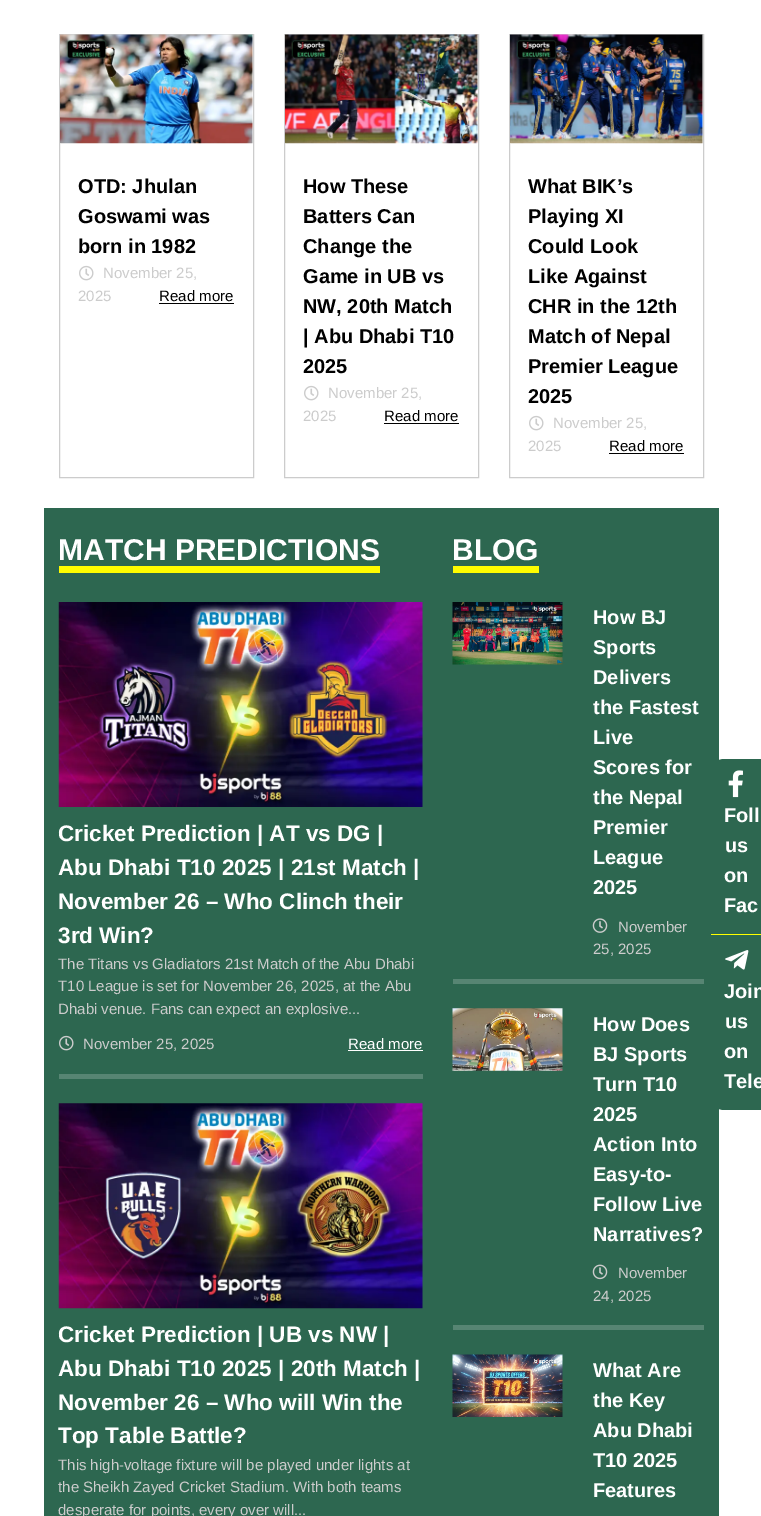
%!PS-Adobe-3.0
%%BoundingBox: 0 0 761 1516
%%LanguageLevel: 3
%%Pages: 1
%%EndComments
%%BeginProlog
/setink { 3 { 255 div 3 1 roll } repeat setrgbcolor } def
/usefont { [ exch dup neg 0 0 3 -1 roll 0 0 ] selectfont } def
/drawtext { setink usefont moveto show } def
/fillbox { setink rectfill } def
/drawimage { 5 dict begin { /h /w /y /x /name } { exch def } forall
  gsave x y translate w h scale
  w h 8 [w 0 0 h 0 0] name (r) file false 3 colorimage grestore end } def
%%EndProlog
%%BeginSetup
<< /PageSize [761 1516] >> setpagedevice
%%EndSetup
%%Page: 1 1
0 1516 translate 1 -1 scale
4 setmiterlimit
0 0 761 1516 255 255 255 fillbox
204 204 204 setink
59.5 34.5 194 443 rectstroke
(assets/img1.rgb) 60 34 193 110 drawimage
(OTD: Jhulan) 78 193 /LiberationSans-Bold 20 0 0 0 drawtext
(Goswami was) 78 223 /LiberationSans-Bold 20 0 0 0 drawtext
(born in 1982) 78 253 /LiberationSans-Bold 20 0 0 0 drawtext
(assets/img2.rgb) 79 265 15 16 drawimage
(November 25,) 103 278 /LiberationSans-Regular 15 204 204 204 drawtext
(2025) 78 301 /LiberationSans-Regular 15 204 204 204 drawtext
(Read more) 159 301 /LiberationSans-Regular 15 0 0 0 drawtext
159 303 75 1 0 0 0 fillbox
204 204 204 setink
284.5 34.5 194 443 rectstroke
(assets/img3.rgb) 285 34 193 110 drawimage
(How These) 303 193 /LiberationSans-Bold 20 0 0 0 drawtext
(Batters Can) 303 223 /LiberationSans-Bold 20 0 0 0 drawtext
(Change the) 303 253 /LiberationSans-Bold 20 0 0 0 drawtext
(Game in UB vs) 303 283 /LiberationSans-Bold 20 0 0 0 drawtext
(NW, 20th Match) 303 313 /LiberationSans-Bold 20 0 0 0 drawtext
(| Abu Dhabi T10) 303 343 /LiberationSans-Bold 20 0 0 0 drawtext
(2025) 303 373 /LiberationSans-Bold 20 0 0 0 drawtext
(assets/img2.rgb) 304 385 15 16 drawimage
(November 25,) 328 398 /LiberationSans-Regular 15 204 204 204 drawtext
(2025) 303 421 /LiberationSans-Regular 15 204 204 204 drawtext
(Read more) 384 421 /LiberationSans-Regular 15 0 0 0 drawtext
384 423 75 1 0 0 0 fillbox
204 204 204 setink
509.5 34.5 194 443 rectstroke
(assets/img4.rgb) 510 34 193 110 drawimage
(What BIK’s) 528 193 /LiberationSans-Bold 20 0 0 0 drawtext
(Playing XI) 528 223 /LiberationSans-Bold 20 0 0 0 drawtext
(Could Look) 528 253 /LiberationSans-Bold 20 0 0 0 drawtext
(Like Against) 528 283 /LiberationSans-Bold 20 0 0 0 drawtext
(CHR in the 12th) 528 313 /LiberationSans-Bold 20 0 0 0 drawtext
(Match of Nepal) 528 343 /LiberationSans-Bold 20 0 0 0 drawtext
(Premier League) 528 373 /LiberationSans-Bold 20 0 0 0 drawtext
(2025) 528 403 /LiberationSans-Bold 20 0 0 0 drawtext
(assets/img2.rgb) 529 415 15 16 drawimage
(November 25,) 553 428 /LiberationSans-Regular 15 204 204 204 drawtext
(2025) 528 451 /LiberationSans-Regular 15 204 204 204 drawtext
(Read more) 609 451 /LiberationSans-Regular 15 0 0 0 drawtext
609 453 75 1 0 0 0 fillbox
44 508 675 1008 45 103 80 fillbox
(MATCH PREDICTIONS) 58 560 /LiberationSans-Bold 30 255 255 255 drawtext
59 566 321 7 255 252 0 fillbox
(assets/img5.rgb) 58 602 365 205 drawimage
(Cricket Prediction | AT vs DG |) 58 841 /LiberationSans-Bold 22.5 255 255 255 drawtext
(Abu Dhabi T10 2025 | 21st Match |) 58 875 /LiberationSans-Bold 22.5 255 255 255 drawtext
(November 26 – Who Clinch their) 58 909 /LiberationSans-Bold 22.5 255 255 255 drawtext
(3rd Win?) 58 943 /LiberationSans-Bold 22.5 255 255 255 drawtext
(The Titans vs Gladiators 21st Match of the Abu Dhabi) 58 969 /LiberationSans-Regular 15 204 204 204 drawtext
(T10 League is set for November 26, 2025, at the Abu) 58 991 /LiberationSans-Regular 15 204 204 204 drawtext
(Dhabi venue. Fans can expect an explosive...) 58 1014 /LiberationSans-Regular 15 204 204 204 drawtext
(assets/img6.rgb) 59 1035 15 16 drawimage
(November 25, 2025) 83 1049 /LiberationSans-Regular 15 204 204 204 drawtext
(Read more) 348 1049 /LiberationSans-Regular 15 255 255 255 drawtext
348 1050 75 1 255 255 255 fillbox
59 1074 364 5 87 133 115 fillbox
(assets/img7.rgb) 58 1103 365 206 drawimage
(Cricket Prediction | UB vs NW |) 58 1342 /LiberationSans-Bold 22.5 255 255 255 drawtext
(Abu Dhabi T10 2025 | 20th Match |) 58 1376 /LiberationSans-Bold 22.5 255 255 255 drawtext
(November 26 – Who will Win the) 58 1410 /LiberationSans-Bold 22.5 255 255 255 drawtext
(Top Table Battle?) 58 1443 /LiberationSans-Bold 22.5 255 255 255 drawtext
(This high-voltage fixture will be played under lights at) 58 1470 /LiberationSans-Regular 15 204 204 204 drawtext
(the Sheikh Zayed Cricket Stadium. With both teams) 58 1492 /LiberationSans-Regular 15 204 204 204 drawtext
(desperate for points, every over will...) 58 1515 /LiberationSans-Regular 15 204 204 204 drawtext
(BLOG) 452 560 /LiberationSans-Bold 30 255 255 255 drawtext
453 566 86 7 255 252 0 fillbox
(assets/img8.rgb) 452 602 111 63 drawimage
(How BJ) 593 624 /LiberationSans-Bold 20 255 255 255 drawtext
(Sports) 593 654 /LiberationSans-Bold 20 255 255 255 drawtext
(Delivers) 593 684 /LiberationSans-Bold 20 255 255 255 drawtext
(the Fastest) 593 714 /LiberationSans-Bold 20 255 255 255 drawtext
(Live) 593 744 /LiberationSans-Bold 20 255 255 255 drawtext
(Scores for) 593 774 /LiberationSans-Bold 20 255 255 255 drawtext
(the Nepal) 593 804 /LiberationSans-Bold 20 255 255 255 drawtext
(Premier) 593 834 /LiberationSans-Bold 20 255 255 255 drawtext
(League) 593 864 /LiberationSans-Bold 20 255 255 255 drawtext
(2025) 593 894 /LiberationSans-Bold 20 255 255 255 drawtext
(assets/img9.rgb) 592 918 16 15 drawimage
(November) 618 932 /LiberationSans-Regular 15 204 204 204 drawtext
(25, 2025) 593 954 /LiberationSans-Regular 15 204 204 204 drawtext
453 979 251 5 87 133 115 fillbox
(assets/img10.rgb) 452 1008 111 63 drawimage
(How Does) 593 1031 /LiberationSans-Bold 20 255 255 255 drawtext
(BJ Sports) 593 1061 /LiberationSans-Bold 20 255 255 255 drawtext
(Turn T10) 593 1091 /LiberationSans-Bold 20 255 255 255 drawtext
(2025) 593 1121 /LiberationSans-Bold 20 255 255 255 drawtext
(Action Into) 593 1151 /LiberationSans-Bold 20 255 255 255 drawtext
(Easy-to-) 593 1181 /LiberationSans-Bold 20 255 255 255 drawtext
(Follow Live) 593 1211 /LiberationSans-Bold 20 255 255 255 drawtext
(Narratives?) 593 1241 /LiberationSans-Bold 20 255 255 255 drawtext
(assets/img11.rgb) 592 1264 16 16 drawimage
(November) 618 1278 /LiberationSans-Regular 15 204 204 204 drawtext
(24, 2025) 593 1301 /LiberationSans-Regular 15 204 204 204 drawtext
453 1325 251 5 87 133 115 fillbox
(assets/img12.rgb) 452 1354 111 63 drawimage
(What Are) 593 1377 /LiberationSans-Bold 20 255 255 255 drawtext
(the Key) 593 1407 /LiberationSans-Bold 20 255 255 255 drawtext
(Abu Dhabi) 593 1437 /LiberationSans-Bold 20 255 255 255 drawtext
(T10 2025) 593 1467 /LiberationSans-Bold 20 255 255 255 drawtext
(Features) 593 1497 /LiberationSans-Bold 20 255 255 255 drawtext
45 103 80 setink
724 759 moveto 761 759 lineto 761 935 lineto 711 935 lineto 711 772 lineto 711 765 717 759 724 759 curveto closepath fill
711 934 50 1 255 255 0 fillbox
(assets/img13.rgb) 728 770 15 28 drawimage
(Foll) 724 822 /LiberationSans-Bold 20 255 255 255 drawtext
(us) 725 852 /LiberationSans-Bold 20 255 255 255 drawtext
(on) 724 882 /LiberationSans-Bold 20 255 255 255 drawtext
(Fac) 724 912 /LiberationSans-Bold 20 255 255 255 drawtext
45 103 80 setink
711 935 moveto 761 935 lineto 761 1110 lineto 724 1110 lineto 717 1110 711 1104 711 1097 curveto closepath fill
(assets/img14.rgb) 725 950 24 20 drawimage
(Join) 724 998 /LiberationSans-Bold 20 255 255 255 drawtext
(us) 725 1028 /LiberationSans-Bold 20 255 255 255 drawtext
(on) 724 1058 /LiberationSans-Bold 20 255 255 255 drawtext
(Tele) 724 1088 /LiberationSans-Bold 20 255 255 255 drawtext
showpage
%%EOF
